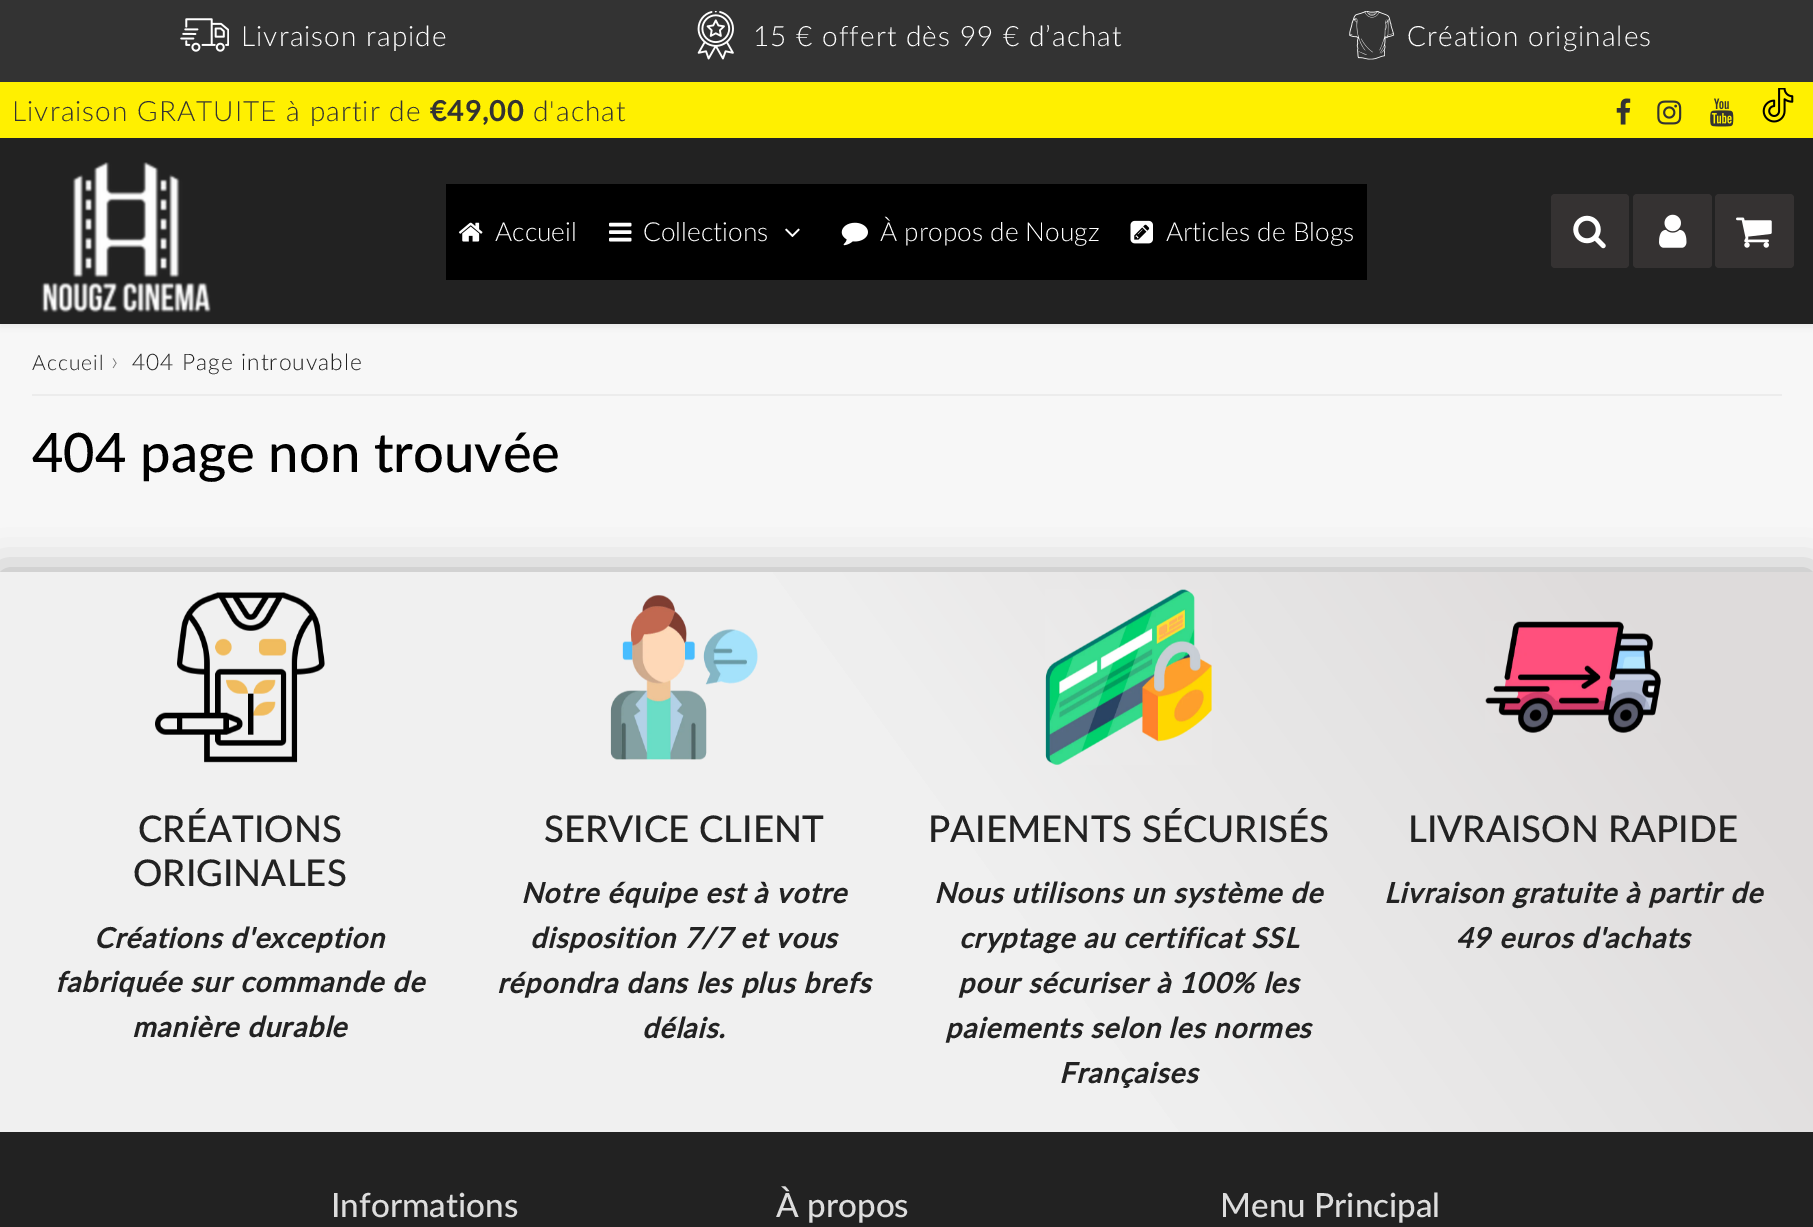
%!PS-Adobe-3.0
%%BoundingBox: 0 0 1813 1227
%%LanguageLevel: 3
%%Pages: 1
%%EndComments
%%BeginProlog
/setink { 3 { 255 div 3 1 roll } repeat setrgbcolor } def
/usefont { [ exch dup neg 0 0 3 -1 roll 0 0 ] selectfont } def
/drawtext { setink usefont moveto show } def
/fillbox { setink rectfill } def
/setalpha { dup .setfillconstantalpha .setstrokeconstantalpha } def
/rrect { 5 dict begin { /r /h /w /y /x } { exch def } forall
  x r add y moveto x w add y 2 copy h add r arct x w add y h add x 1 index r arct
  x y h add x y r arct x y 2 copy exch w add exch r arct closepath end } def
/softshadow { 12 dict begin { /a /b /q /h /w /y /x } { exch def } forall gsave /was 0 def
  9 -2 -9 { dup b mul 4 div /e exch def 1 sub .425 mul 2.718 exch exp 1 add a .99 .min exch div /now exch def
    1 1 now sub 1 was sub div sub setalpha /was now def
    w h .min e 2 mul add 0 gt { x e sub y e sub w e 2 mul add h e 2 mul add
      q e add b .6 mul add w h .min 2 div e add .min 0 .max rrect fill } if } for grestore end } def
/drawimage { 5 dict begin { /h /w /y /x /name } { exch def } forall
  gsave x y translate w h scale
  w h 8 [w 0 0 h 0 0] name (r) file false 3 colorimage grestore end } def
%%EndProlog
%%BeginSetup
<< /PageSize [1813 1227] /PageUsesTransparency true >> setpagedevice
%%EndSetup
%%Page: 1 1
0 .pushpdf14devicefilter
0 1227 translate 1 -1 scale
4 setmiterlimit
0 0 1813 1227 247 247 247 fillbox
0 0 1813 82 51 51 51 fillbox
(assets/img1.rgb) 180 18 49 34 drawimage
/Lato-Light 28 usefont
255 255 255 setink
241 46 moveto 1.05 0 (Livraison rapide) ashow
(assets/img2.rgb) 697 11 37 49 drawimage
753 46 moveto 1.05 0 (15 € offert dès 99 € d’achat) ashow
(assets/img3.rgb) 1349 11 46 49 drawimage
1407 46 moveto 1.05 0 (Création originales) ashow
0 0 0 setink
0 86 1813 241 0 3.5 0.05 softshadow
0 138 1813 186 34 34 34 fillbox
0 82 1813 56 255 240 0 fillbox
51 51 51 setink
12 121 moveto 1.05 0 (Livraison GRATUITE à partir de) ashow
/Lato-Bold 28 usefont
430 121 moveto 1.05 0 (€49,00) ashow
/Lato-Light 28 usefont
533 121 moveto 1.05 0 (d'achat) ashow
(assets/img4.rgb) 1616 98 15 27 drawimage
(assets/img5.rgb) 1657 100 25 25 drawimage
(assets/img6.rgb) 1710 98 24 29 drawimage
(assets/img7.rgb) 1762 88 32 35 drawimage
(assets/img8.rgb) 41 162 170 151 drawimage
446 184 921 96 0 0 0 fillbox
(assets/img9.rgb) 458 222 25 20 drawimage
(Accueil) 495 241 /Lato-Light 26.25 255 255 255 drawtext
(assets/img10.rgb) 609 222 23 20 drawimage
(Collections) 643 241 /Lato-Light 26.25 255 255 255 drawtext
(assets/img11.rgb) 785 228 15 9 drawimage
(assets/img12.rgb) 841 222 27 24 drawimage
(À propos de Nougz) 880 241 /Lato-Light 26.25 255 255 255 drawtext
(assets/img13.rgb) 1130 220 23 24 drawimage
(Articles de Blogs) 1166 241 /Lato-Light 26.25 255 255 255 drawtext
53 50 50 setink
1551 194 78 74 4 rrect fill
(assets/img14.rgb) 1573 215 33 34 drawimage
1633 194 79 74 4 rrect fill
(assets/img15.rgb) 1659 214 28 34 drawimage
1715 194 79 74 4 rrect fill
(assets/img16.rgb) 1736 217 36 31 drawimage
32 394 1750 2 236 236 236 fillbox
/Lato-Light 21 usefont
34 34 34 setink
32 370 moveto 1.05 0 (Accueil) ashow
/Lato-Light 26.25 usefont
118 118 118 setink
111 370 moveto 1.05 0 (›) ashow
/Lato-Light 22.75 usefont
34 34 34 setink
132 370 moveto 1.05 0 (404 Page introuvable) ashow
(404 page non trouvée) 32 472 /Lato-Medium 54.25 0 0 0 drawtext
0 572 1813 560 0 20 0.3 softshadow
gsave 0 572 moveto 1813 572 lineto 1813 1132 lineto 0 1132 lineto closepath clip newpath
<< /ShadingType 2 /ColorSpace /DeviceRGB /Coords [180 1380 1633 324] /Extend [true true] /Function << /FunctionType 3 /Domain [0 1] /Functions [<< /FunctionType 2 /Domain [0 1] /C0 [0.941 0.941 0.941] /C1 [0.941 0.941 0.941] /N 1 >> << /FunctionType 2 /Domain [0 1] /C0 [0.941 0.941 0.941] /C1 [0.941 0.941 0.941] /N 1 >> << /FunctionType 2 /Domain [0 1] /C0 [0.941 0.941 0.941] /C1 [0.871 0.859 0.859] /N 1 >> << /FunctionType 2 /Domain [0 1] /C0 [0.871 0.859 0.859] /C1 [0.871 0.859 0.859] /N 1 >>] /Bounds [0.4 0.52 0.91] /Encode [0 1 0 1 0 1 0 1] >> >> shfill grestore
(assets/img17.rgb) 155 592 170 171 drawimage
(CRÉATIONS) 138 842 /Lato-Medium 36.75 34 34 34 drawtext
(ORIGINALES) 133 886 /Lato-Medium 36.75 34 34 34 drawtext
/Lato-BoldItalic 28 usefont
94 948 moveto 1.05 0 (Créations d'exception) ashow
55 992 moveto 1.05 0 (fabriquée sur commande de) ashow
132 1037 moveto 1.05 0 (manière durable) ashow
(assets/img18.rgb) 610 595 148 165 drawimage
(SERVICE CLIENT) 544 842 /Lato-Medium 36.75 34 34 34 drawtext
/Lato-BoldItalic 28 usefont
521 903 moveto 1.05 0 (Notre équipe est à votre) ashow
530 948 moveto 1.05 0 (disposition 7/7 et vous) ashow
497 993 moveto 1.05 0 (répondra dans les plus brefs) ashow
642 1038 moveto 1.05 0 (délais.) ashow
(assets/img19.rgb) 1045 589 167 176 drawimage
(PAIEMENTS SÉCURISÉS) 928 842 /Lato-Medium 36.75 34 34 34 drawtext
/Lato-BoldItalic 28 usefont
934 903 moveto 1.05 0 (Nous utilisons un système de) ashow
959 948 moveto 1.05 0 (cryptage au certificat SSL) ashow
958 993 moveto 1.05 0 (pour sécuriser à 100% les) ashow
945 1038 moveto 1.05 0 (paiements selon les normes) ashow
1059 1083 moveto 1.05 0 (Françaises) ashow
(assets/img20.rgb) 1485 621 176 112 drawimage
(LIVRAISON RAPIDE) 1408 842 /Lato-Medium 36.75 34 34 34 drawtext
/Lato-BoldItalic 28 usefont
1384 903 moveto 1.05 0 (Livraison gratuite à partir de) ashow
1456 948 moveto 1.05 0 (49 euros d'achats) ashow
0 1132 1813 95 34 34 34 fillbox
(Informations) 331 1217 /Lato-Medium 33.25 221 221 221 drawtext
(À propos) 776 1217 /Lato-Medium 33.25 221 221 221 drawtext
(Menu Principal) 1220 1217 /Lato-Medium 33.25 221 221 221 drawtext
.poppdf14devicefilter showpage
%%EOF
